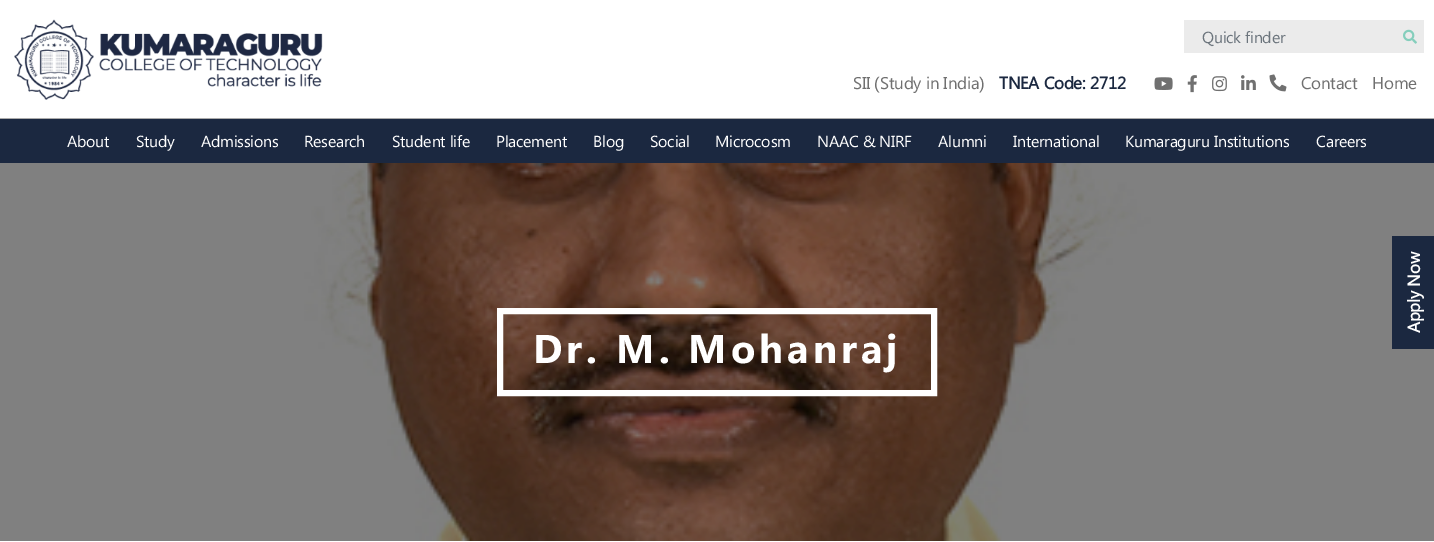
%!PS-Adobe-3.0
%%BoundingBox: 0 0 1434 542
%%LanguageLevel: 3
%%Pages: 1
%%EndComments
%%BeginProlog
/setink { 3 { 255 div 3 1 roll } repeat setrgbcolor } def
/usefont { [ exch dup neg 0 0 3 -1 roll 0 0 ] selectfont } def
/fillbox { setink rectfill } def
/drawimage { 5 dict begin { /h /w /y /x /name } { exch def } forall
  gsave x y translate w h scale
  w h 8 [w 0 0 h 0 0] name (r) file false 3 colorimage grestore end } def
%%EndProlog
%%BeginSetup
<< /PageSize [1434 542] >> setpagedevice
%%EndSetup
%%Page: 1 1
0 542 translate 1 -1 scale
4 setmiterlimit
0 0 1434 542 255 255 255 fillbox
(assets/img1.rgb) 14 19 309 81 drawimage
1184 20 240 33 235 235 235 fillbox
/SegoeUI-Regular 16 usefont
108 117 125 setink
1202 43 moveto -0.25 0 (Quick finder) ashow
(assets/img2.rgb) 1403 29 14 15 drawimage
/SegoeUI-Regular 17 usefont
112 112 112 setink
853 89 moveto -0.25 0 (SII) ashow
/LiberationSans-Regular 17 usefont
874 89 moveto -0.25 0 (\() ashow
/SegoeUI-Regular 17 usefont
880 89 moveto -0.25 0 (Study in India) ashow
/LiberationSans-Regular 17 usefont
979 89 moveto -0.25 0 (\)) ashow
/SegoeUI-Bold 17 usefont
27 40 64 setink
999 89 moveto -0.25 0 (TNEA Code: 2712) ashow
(assets/img3.rgb) 1154 77 19 13 drawimage
(assets/img4.rgb) 1187 75 10 18 drawimage
(assets/img5.rgb) 1212 76 15 16 drawimage
(assets/img6.rgb) 1241 75 15 15 drawimage
(assets/img7.rgb) 1269 74 18 18 drawimage
/SegoeUI-Regular 17 usefont
112 112 112 setink
1301 89 moveto -0.25 0 (Contact) ashow
1372 89 moveto -0.25 0 (Home) ashow
0 119 1434 44 27 40 64 fillbox
0 118 1434 1 171 171 171 fillbox
/SegoeUI-Regular 16 usefont
255 255 255 setink
67 147 moveto -0.25 0 (About) ashow
136 147 moveto -0.25 0 (Study) ashow
201 147 moveto -0.25 0 (Admissions) ashow
304 147 moveto -0.25 0 (Research) ashow
392 147 moveto -0.25 0 (Student life) ashow
496 147 moveto -0.25 0 (Placement) ashow
593 147 moveto -0.25 0 (Blog) ashow
650 147 moveto -0.25 0 (Social) ashow
715 147 moveto -0.25 0 (Microcosm) ashow
817 147 moveto -0.25 0 (NAAC & NIRF) ashow
938 147 moveto -0.25 0 (Alumni) ashow
1013 147 moveto -0.25 0 (International) ashow
1125 147 moveto -0.25 0 (Kumaraguru Institutions) ashow
1316 147 moveto -0.25 0 (Careers) ashow
(assets/img8.rgb) 0 163 1434 378 drawimage
1392 236 42 113 27 40 64 fillbox
/SegoeUI-Bold 17 usefont
255 255 255 setink
gsave 1420 333 translate -90 rotate 0 0 moveto -0.25 0 (Apply Now) ashow grestore
6 setlinewidth
500 311 434 82 rectstroke
/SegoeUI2-Bold 40 usefont
533 363 moveto 4 0 (Dr. M. Mohanraj) ashow
showpage
%%EOF
